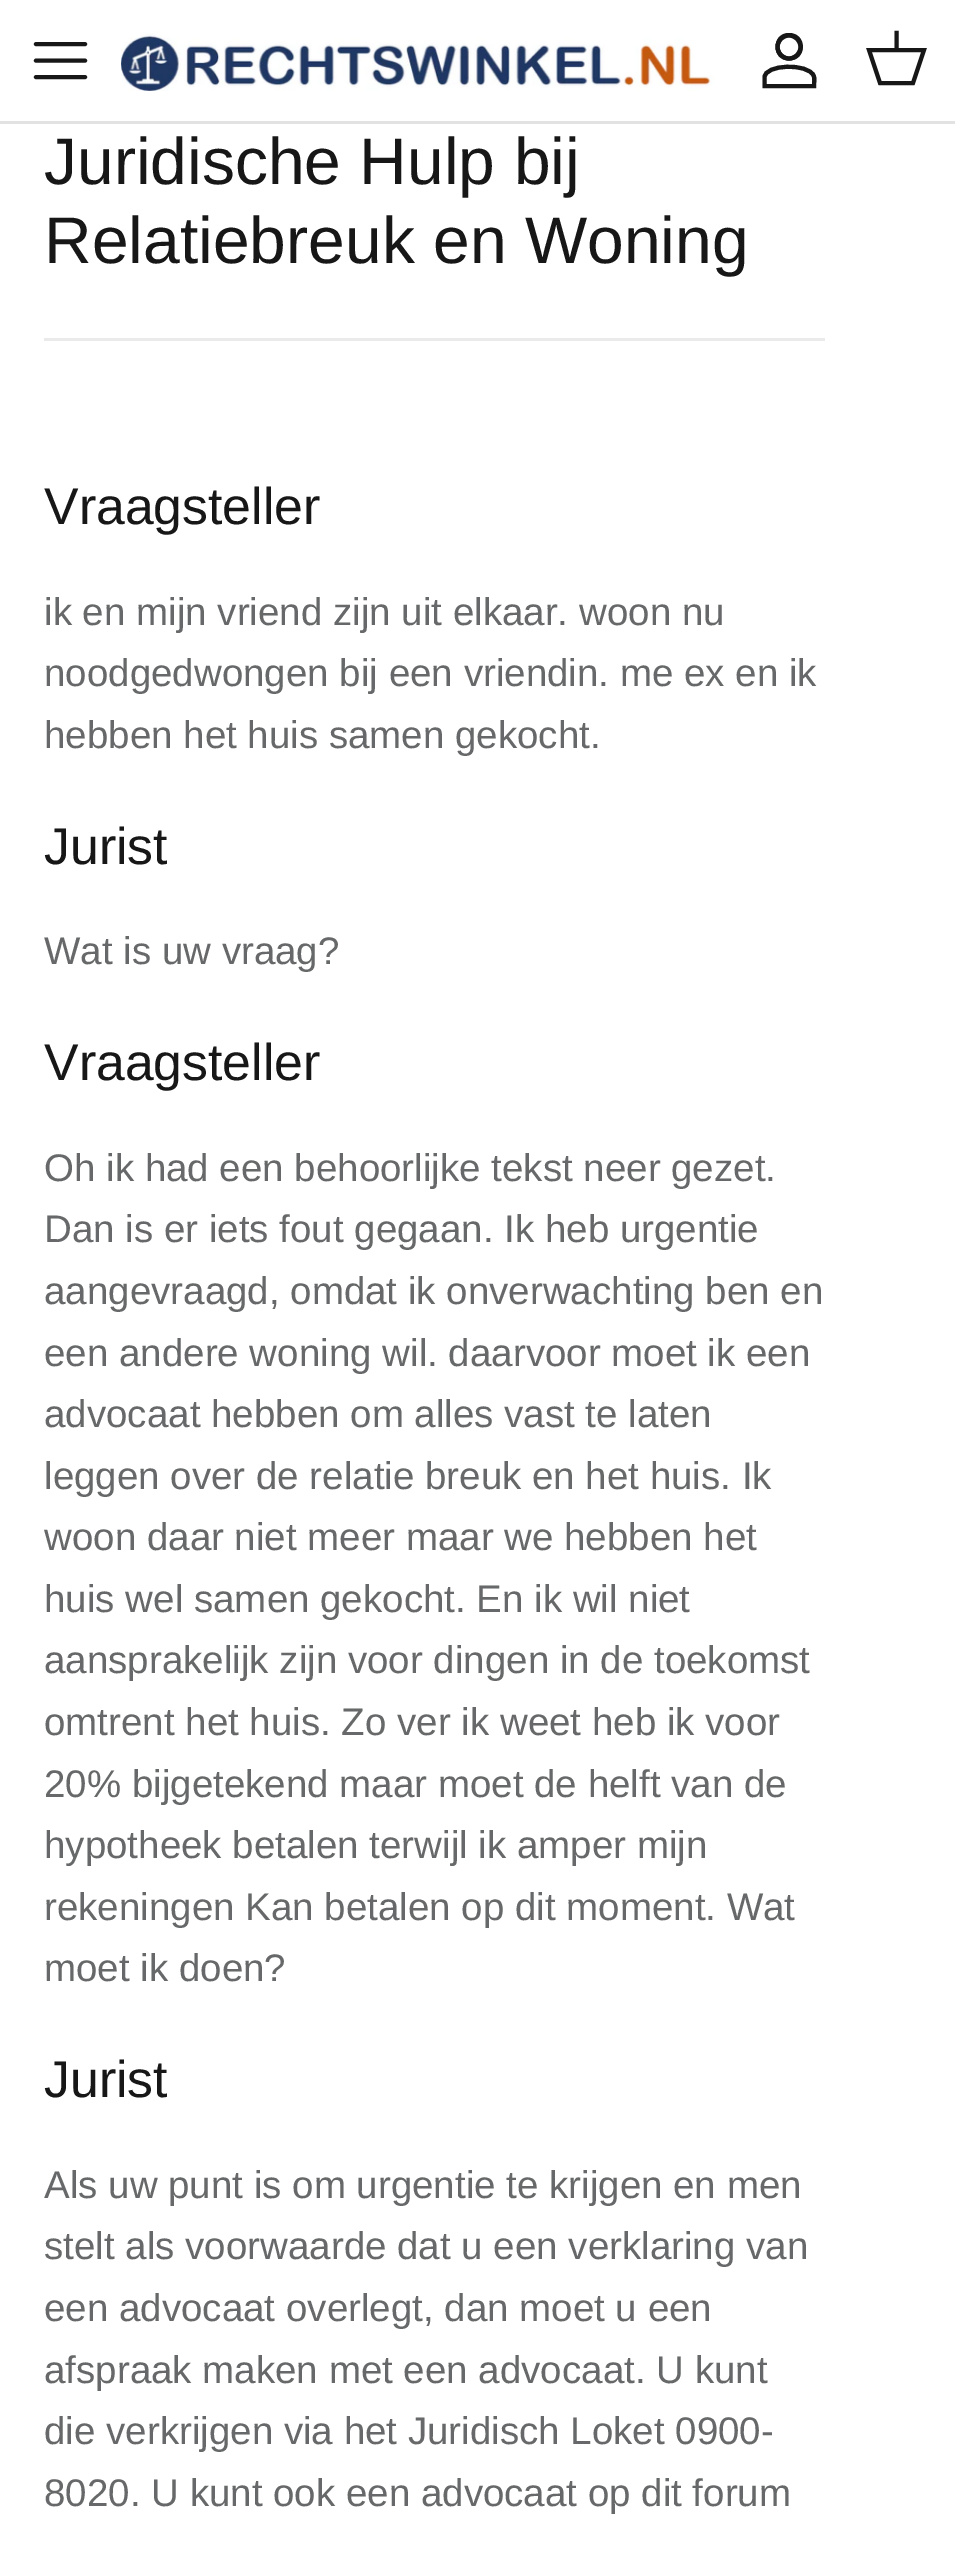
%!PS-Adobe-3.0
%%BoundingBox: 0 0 955 2549
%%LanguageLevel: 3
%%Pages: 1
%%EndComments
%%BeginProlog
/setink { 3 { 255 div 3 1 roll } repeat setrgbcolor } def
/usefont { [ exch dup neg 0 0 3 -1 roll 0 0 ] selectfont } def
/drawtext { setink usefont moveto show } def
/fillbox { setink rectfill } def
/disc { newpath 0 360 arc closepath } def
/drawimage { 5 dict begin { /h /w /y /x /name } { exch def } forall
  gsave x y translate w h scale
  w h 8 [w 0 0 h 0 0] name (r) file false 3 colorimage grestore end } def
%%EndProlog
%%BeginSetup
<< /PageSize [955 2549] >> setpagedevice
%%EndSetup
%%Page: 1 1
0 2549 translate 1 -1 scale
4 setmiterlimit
0 0 955 2549 255 255 255 fillbox
0 121 955 3 226 226 226 fillbox
23 23 23 setink
4.1 setlinewidth
1 setlinecap
1 setlinejoin
36 60.5 moveto 85 60.5 lineto 36 44 moveto 85 44 lineto 36 77 moveto 85 77 lineto stroke
(assets/img1.rgb) 121 31 594 60 drawimage
789 33 moveto 807.5 33 807.5 60.5 789 60.5 curveto 771 60.5 771 33 789 33 curveto closepath 789 37 moveto 776.5 37 776.5 56.5 789 56.5 curveto 802 56.5 802 37 789 37 curveto closepath eofill
0 setlinecap
0 setlinejoin
789 47 11.5 disc stroke
764.5 77.5 moveto 764.5 64 808 63 813.5 75.5 curveto 815 78 814 83 814 86 curveto 764.5 86 lineto closepath stroke
869 50 moveto 924 50 lineto 913 83 lineto 880 83 lineto closepath stroke
2 setlinecap
896.5 49.5 moveto 896.5 33 lineto stroke
(Juridische Hulp bij) 44 184 /Arimo-Regular 66 23 23 23 drawtext
(Relatiebreuk en Woning) 44 263 /Arimo-Regular 66 23 23 23 drawtext
44 338 781 3 234 234 234 fillbox
(Vraagsteller) 44 524 /Arimo-Regular 51.75 23 23 23 drawtext
(ik en mijn vriend zijn uit elkaar. woon nu) 44 625 /Arimo-Regular 38.5 103 104 105 drawtext
(noodgedwongen bij een vriendin. me ex en ik) 44 686 /Arimo-Regular 38.5 103 104 105 drawtext
(hebben het huis samen gekocht.) 44 748 /Arimo-Regular 38.5 103 104 105 drawtext
(Jurist) 44 864 /Arimo-Regular 51.75 23 23 23 drawtext
(Wat is uw vraag?) 44 964 /Arimo-Regular 38.5 103 104 105 drawtext
(Vraagsteller) 44 1080 /Arimo-Regular 51.75 23 23 23 drawtext
(Oh ik had een behoorlijke tekst neer gezet.) 44 1181 /Arimo-Regular 38.5 103 104 105 drawtext
(Dan is er iets fout gegaan. Ik heb urgentie) 44 1242 /Arimo-Regular 38.5 103 104 105 drawtext
(aangevraagd, omdat ik onverwachting ben en) 44 1304 /Arimo-Regular 38.5 103 104 105 drawtext
(een andere woning wil. daarvoor moet ik een) 44 1366 /Arimo-Regular 38.5 103 104 105 drawtext
(advocaat hebben om alles vast te laten) 44 1427 /Arimo-Regular 38.5 103 104 105 drawtext
(leggen over de relatie breuk en het huis. Ik) 44 1489 /Arimo-Regular 38.5 103 104 105 drawtext
(woon daar niet meer maar we hebben het) 44 1550 /Arimo-Regular 38.5 103 104 105 drawtext
(huis wel samen gekocht. En ik wil niet) 44 1612 /Arimo-Regular 38.5 103 104 105 drawtext
(aansprakelijk zijn voor dingen in de toekomst) 44 1673 /Arimo-Regular 38.5 103 104 105 drawtext
(omtrent het huis. Zo ver ik weet heb ik voor) 44 1735 /Arimo-Regular 38.5 103 104 105 drawtext
(20% bijgetekend maar moet de helft van de) 44 1797 /Arimo-Regular 38.5 103 104 105 drawtext
(hypotheek betalen terwijl ik amper mijn) 44 1858 /Arimo-Regular 38.5 103 104 105 drawtext
(rekeningen Kan betalen op dit moment. Wat) 44 1920 /Arimo-Regular 38.5 103 104 105 drawtext
(moet ik doen?) 44 1981 /Arimo-Regular 38.5 103 104 105 drawtext
(Jurist) 44 2097 /Arimo-Regular 51.75 23 23 23 drawtext
(Als uw punt is om urgentie te krijgen en men) 44 2198 /Arimo-Regular 38.5 103 104 105 drawtext
(stelt als voorwaarde dat u een verklaring van) 44 2259 /Arimo-Regular 38.5 103 104 105 drawtext
(een advocaat overlegt, dan moet u een) 44 2321 /Arimo-Regular 38.5 103 104 105 drawtext
(afspraak maken met een advocaat. U kunt) 44 2383 /Arimo-Regular 38.5 103 104 105 drawtext
(die verkrijgen via het Juridisch Loket 0900-) 44 2444 /Arimo-Regular 38.5 103 104 105 drawtext
(8020. U kunt ook een advocaat op dit forum) 44 2506 /Arimo-Regular 38.5 103 104 105 drawtext
showpage
%%EOF
